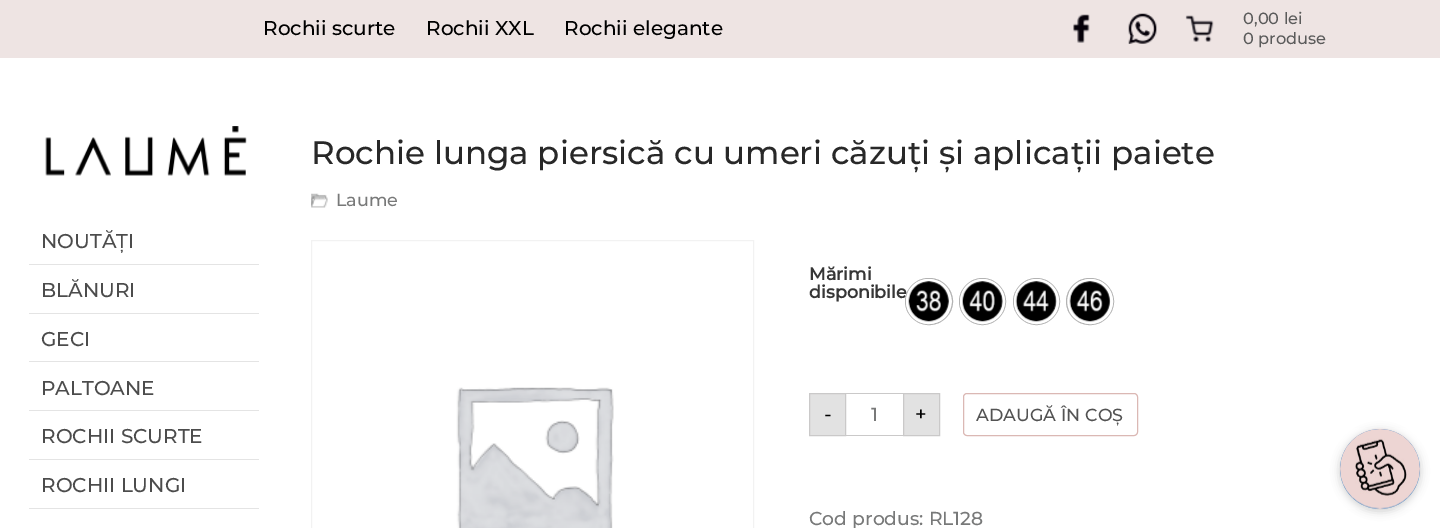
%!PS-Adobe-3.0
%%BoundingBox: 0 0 1440 528
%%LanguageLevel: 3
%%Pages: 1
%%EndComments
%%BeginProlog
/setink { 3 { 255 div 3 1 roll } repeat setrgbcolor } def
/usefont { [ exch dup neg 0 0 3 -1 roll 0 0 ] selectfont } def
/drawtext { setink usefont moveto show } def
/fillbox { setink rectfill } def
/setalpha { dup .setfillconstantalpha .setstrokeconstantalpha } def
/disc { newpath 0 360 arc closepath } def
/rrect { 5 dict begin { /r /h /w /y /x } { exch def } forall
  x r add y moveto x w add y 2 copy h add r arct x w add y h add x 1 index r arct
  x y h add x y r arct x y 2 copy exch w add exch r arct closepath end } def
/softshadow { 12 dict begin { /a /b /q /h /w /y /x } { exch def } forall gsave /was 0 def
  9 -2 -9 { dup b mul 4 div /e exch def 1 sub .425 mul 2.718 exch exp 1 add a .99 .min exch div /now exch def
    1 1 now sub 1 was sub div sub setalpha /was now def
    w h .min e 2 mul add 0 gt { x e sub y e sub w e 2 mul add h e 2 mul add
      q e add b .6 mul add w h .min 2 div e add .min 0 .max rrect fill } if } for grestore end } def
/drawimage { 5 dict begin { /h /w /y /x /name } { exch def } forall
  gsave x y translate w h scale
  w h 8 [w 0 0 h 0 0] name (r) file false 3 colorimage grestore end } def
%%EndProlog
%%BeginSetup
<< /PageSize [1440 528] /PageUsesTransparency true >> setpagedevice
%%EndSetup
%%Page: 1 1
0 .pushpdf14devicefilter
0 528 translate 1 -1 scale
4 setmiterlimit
0 0 1440 528 255 255 255 fillbox
0 0 1440 58 238 228 227 fillbox
(Rochii scurte) 263 35 /Montserrat-Thin 20 0 0 0 drawtext
(Rochii XXL) 426 35 /Montserrat-Thin 20 0 0 0 drawtext
(Rochii elegante) 564 35 /Montserrat-Thin 20 0 0 0 drawtext
(assets/img1.rgb) 1073 14 17 29 drawimage
(assets/img2.rgb) 1128 13 29 31 drawimage
(assets/img3.rgb) 1185 15 29 27 drawimage
(0,00 lei) 1243 24 /Montserrat-Thin 16.25 91 91 91 drawtext
(0 produse) 1243 44 /Montserrat-Thin 16.25 91 91 91 drawtext
(assets/img4.rgb) 45 126 202 50 drawimage
29 264 230 1 228 228 228 fillbox
(NOUTĂȚI) 41 248 /Montserrat-Thin 20 76 76 76 drawtext
29 313 230 1 228 228 228 fillbox
(BLĂNURI) 41 297 /Montserrat-Thin 20 76 76 76 drawtext
29 361 230 1 228 228 228 fillbox
(GECI) 41 346 /Montserrat-Thin 20 76 76 76 drawtext
29 410 230 1 228 228 228 fillbox
(PALTOANE) 41 395 /Montserrat-Thin 20 76 76 76 drawtext
29 459 230 1 228 228 228 fillbox
(ROCHII SCURTE) 41 443 /Montserrat-Thin 20 76 76 76 drawtext
29 508 230 1 228 228 228 fillbox
(ROCHII LUNGI) 41 492 /Montserrat-Thin 20 76 76 76 drawtext
(Rochie lunga piersică cu umeri căzuți și aplicații paiete) 311 164 /Montserrat-Thin 32.5 40 40 40 drawtext
(assets/img5.rgb) 311 193 17 15 drawimage
(Laume) 336 206 /Montserrat-Thin 17.5 120 121 121 drawtext
242 242 242 setink
311.5 240.5 442 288 rectstroke
(assets/img6.rgb) 456 387 158 141 drawimage
(Mărimi) 809 280 /Montserrat-Bold 17.5 54 54 54 drawtext
(disponibile) 809 298 /Montserrat-Bold 17.5 54 54 54 drawtext
179 179 179 setink
905.5 278.5 47 46 23 rrect stroke
255 255 255 setink
3 setlinewidth
928.5 301.5 21 disc stroke
(assets/img7.rgb) 908 281 41 41 drawimage
179 179 179 setink
1 setlinewidth
982.5 301.5 23 disc stroke
255 255 255 setink
3 setlinewidth
982.5 301.5 21 disc stroke
(assets/img8.rgb) 962 281 41 41 drawimage
179 179 179 setink
1 setlinewidth
1036.5 301.5 23 disc stroke
255 255 255 setink
3 setlinewidth
1036.5 301.5 21 disc stroke
(assets/img9.rgb) 1015 281 42 41 drawimage
179 179 179 setink
1 setlinewidth
1066.5 278.5 47 46 23 rrect stroke
255 255 255 setink
3 setlinewidth
1090.5 301.5 21 disc stroke
(assets/img10.rgb) 1069 281 42 41 drawimage
226 226 226 setink
809.5 393.5 moveto 845.5 393.5 lineto 845.5 435.5 lineto 809.5 435.5 lineto closepath gsave fill grestore
202 201 201 setink
1 setlinewidth
stroke
(-) 824 421 /Montserrat-Thin 20 0 0 0 drawtext
846 393 57 1 202 201 201 fillbox
846 435 57 1 202 201 201 fillbox
(1) 871 421 /Montserrat-Thin 18.75 120 121 121 drawtext
226 226 226 setink
903.5 393.5 moveto 939.5 393.5 lineto 939.5 435.5 lineto 903.5 435.5 lineto closepath gsave fill grestore
202 201 201 setink
stroke
(+) 915 421 /Montserrat-Thin 20 0 0 0 drawtext
219 184 180 setink
963.5 393.5 174 42 3.5 rrect stroke
(ADAUGĂ ÎN COȘ) 976 421 /Montserrat-Thin 17.5 83 83 83 drawtext
(Cod produs: RL128) 809 525 /Montserrat-Thin 18.75 120 121 121 drawtext
0 0 0 setink
1340 431 80 80 40 4.5 0.2 softshadow
30 115 190 setink
1380 469 40 disc fill
(assets/img11.rgb) 1340 428 80 81 drawimage
.poppdf14devicefilter showpage
%%EOF
